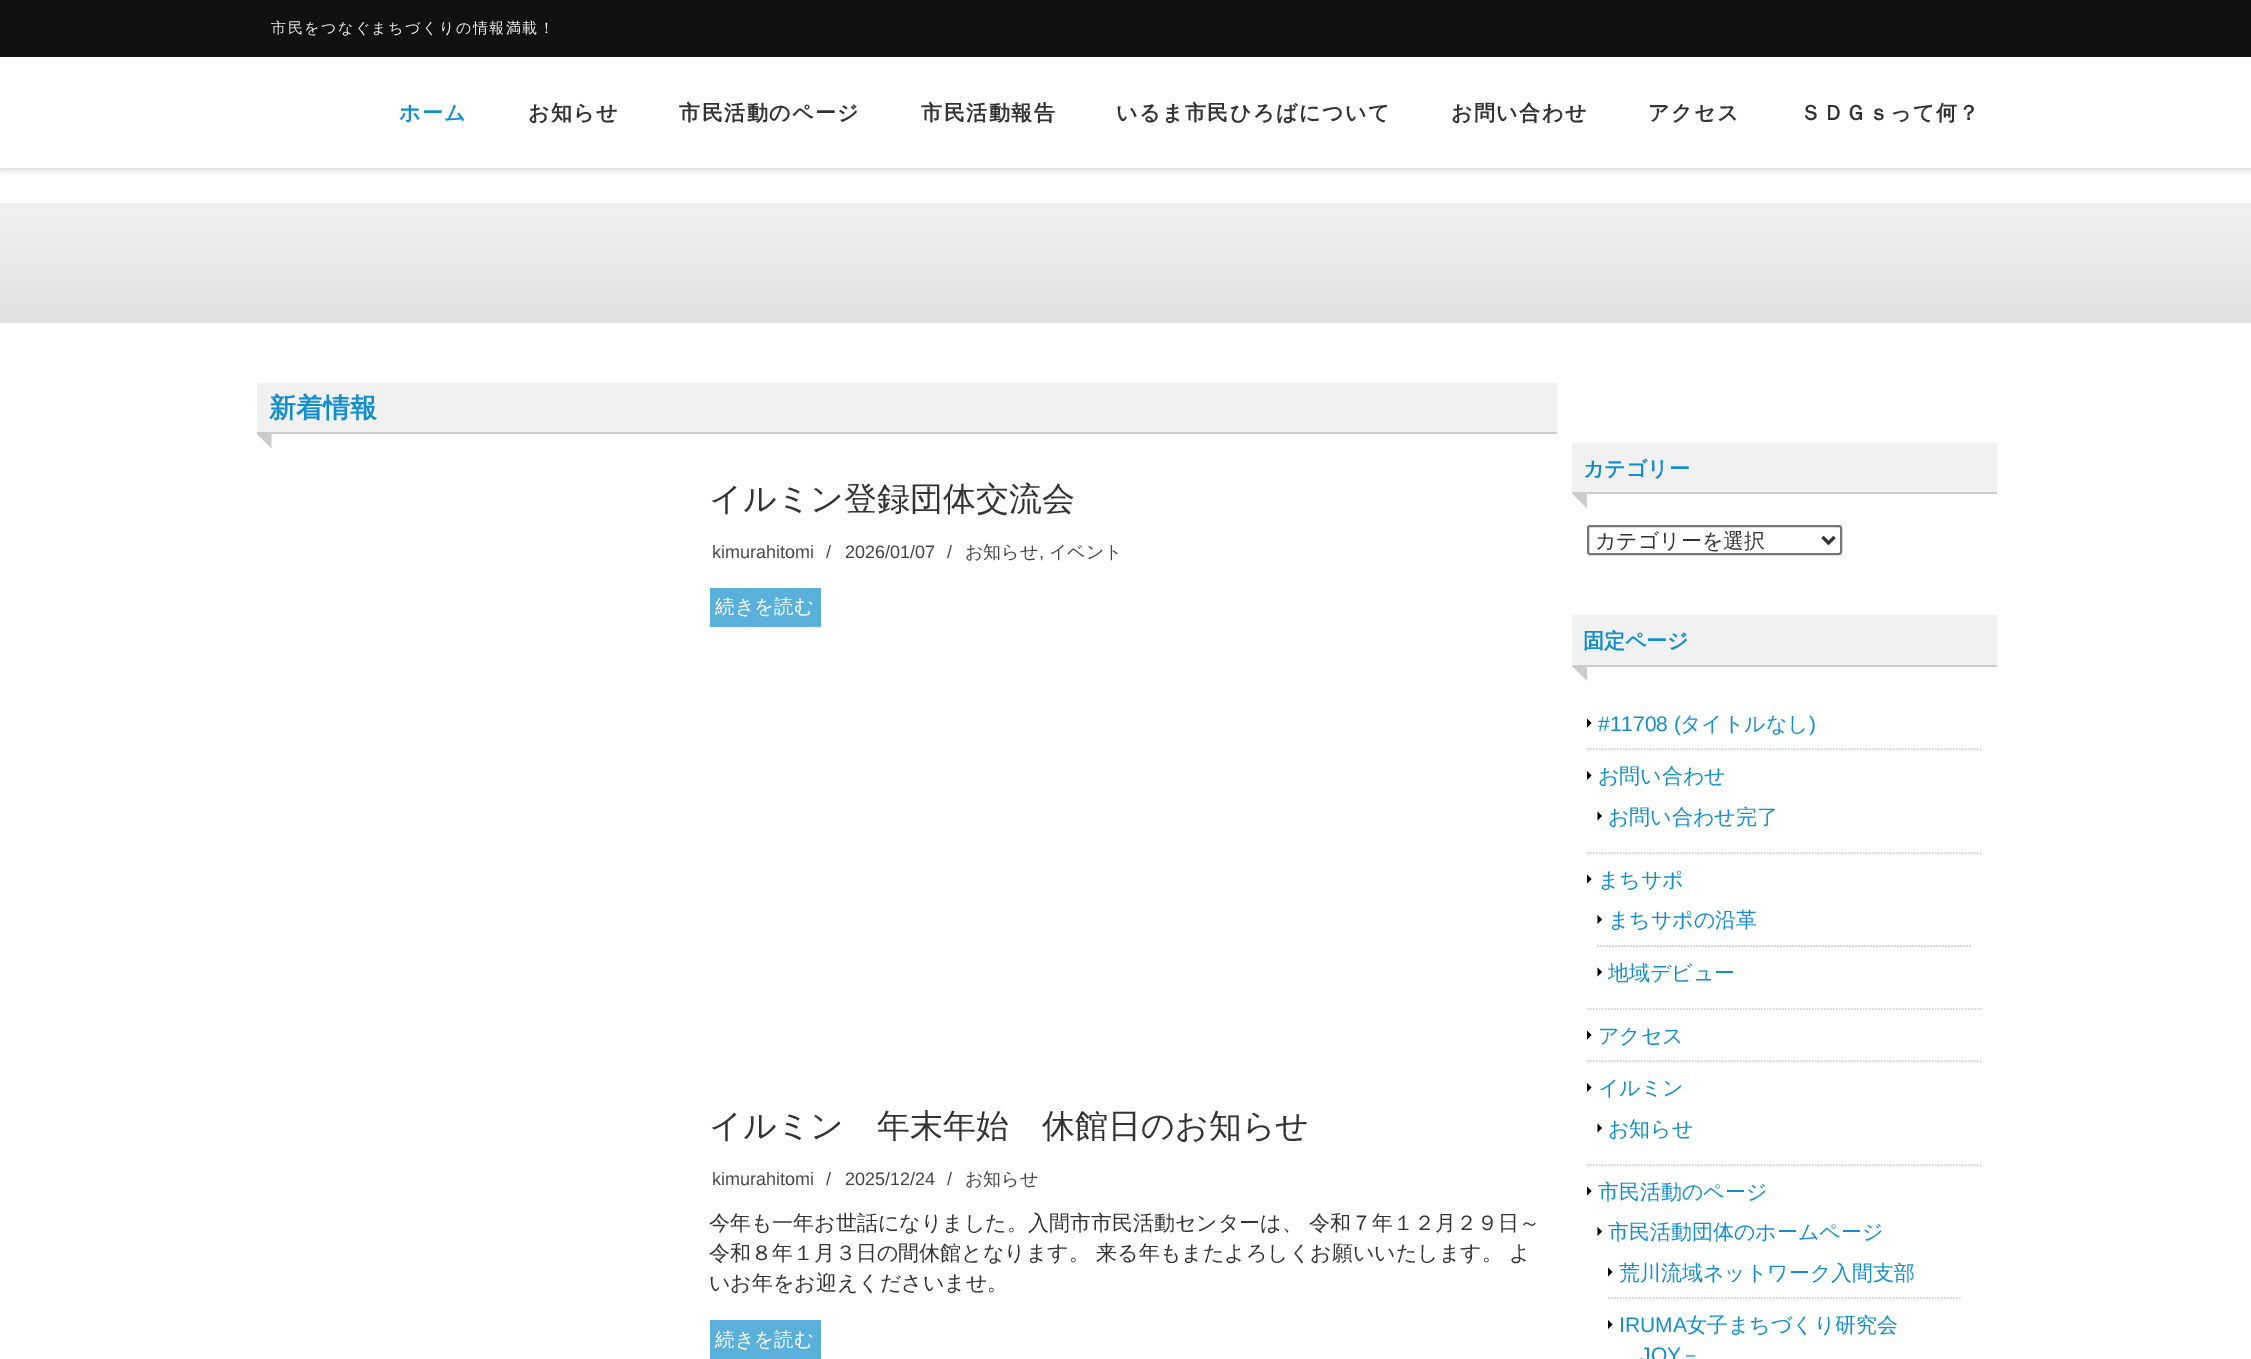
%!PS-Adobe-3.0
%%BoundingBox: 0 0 2251 1359
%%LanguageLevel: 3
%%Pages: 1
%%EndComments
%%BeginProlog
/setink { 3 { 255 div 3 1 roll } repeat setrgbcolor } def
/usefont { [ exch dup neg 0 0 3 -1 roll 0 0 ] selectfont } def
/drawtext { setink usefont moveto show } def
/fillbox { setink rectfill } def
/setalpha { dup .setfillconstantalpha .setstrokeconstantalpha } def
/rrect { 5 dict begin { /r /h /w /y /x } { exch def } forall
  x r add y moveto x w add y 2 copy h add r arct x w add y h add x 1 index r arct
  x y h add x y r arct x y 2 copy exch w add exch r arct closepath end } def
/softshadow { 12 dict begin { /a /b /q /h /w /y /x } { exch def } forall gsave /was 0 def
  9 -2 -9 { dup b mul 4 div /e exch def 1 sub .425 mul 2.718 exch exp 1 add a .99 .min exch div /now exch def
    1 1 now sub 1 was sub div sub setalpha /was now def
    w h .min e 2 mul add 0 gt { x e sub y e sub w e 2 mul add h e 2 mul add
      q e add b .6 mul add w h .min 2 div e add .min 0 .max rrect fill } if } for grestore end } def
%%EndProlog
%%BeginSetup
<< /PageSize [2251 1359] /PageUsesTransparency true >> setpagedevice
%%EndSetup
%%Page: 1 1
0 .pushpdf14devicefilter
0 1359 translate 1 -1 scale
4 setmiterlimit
0 0 2251 1359 255 255 255 fillbox
gsave
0 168 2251 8 rectclip
187 187 187 setink
0 0 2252 168 0 4 1 softshadow
grestore
0 0 2251 57 17 17 17 fillbox
/WenQuanYiZenHei-Medium 15 usefont
238 238 238 setink
271 33 moveto 1.5 0 (市民をつなぐまちづくりの情報満載！) ashow
/WenQuanYiZenHei-Bold 21 usefont
18 142 204 setink
399 120 moveto 1.5 0 (ホーム) ashow
51 51 51 setink
528 120 moveto 1.5 0 (お知らせ) ashow
679 120 moveto 1.5 0 (市民活動のページ) ashow
921 120 moveto 1.5 0 (市民活動報告) ashow
1116 120 moveto 1.5 0 (いるま市民ひろばについて) ashow
1451 120 moveto 1.5 0 (お問い合わせ) ashow
1648 120 moveto 1.5 0 (アクセス) ashow
1800 120 moveto 1.5 0 (ＳＤＧｓって何？) ashow
gsave 0 203 moveto 2251 203 lineto 2251 323 lineto 0 323 lineto closepath clip newpath
<< /ShadingType 2 /ColorSpace /DeviceRGB /Coords [1126 323 1126 203] /Extend [true true] /Function << /FunctionType 2 /Domain [0 1] /C0 [0.882 0.882 0.882] /C1 [0.945 0.945 0.945] /N 1 >> >> shfill grestore
257 383 1300 49 241 241 241 fillbox
257 432 1300 2 204 204 204 fillbox
(新着情報) 269 417 /WenQuanYiZenHei-Bold 27 18 142 204 drawtext
204 204 204 setink
256.5 433.5 moveto 271.5 433.5 lineto 264 441 lineto closepath fill
271.5 433.5 moveto 271.5 448.5 lineto 264 441 lineto closepath fill
(イルミン登録団体交流会) 709 510 /WenQuanYiZenHei-Medium 33 51 51 51 drawtext
(kimurahitomi) 712 558 /LiberationSans-Regular 18 68 68 68 drawtext
(/) 826 558 /LiberationSans-Regular 18 68 68 68 drawtext
(2026/01/07) 845 558 /LiberationSans-Regular 18 68 68 68 drawtext
(/) 947 558 /LiberationSans-Regular 18 68 68 68 drawtext
(お知らせ) 965 558 /WenQuanYiZenHei-Medium 18 68 68 68 drawtext
(,) 1039 558 /LiberationSans-Regular 18 68 68 68 drawtext
(イベント) 1049 558 /WenQuanYiZenHei-Medium 18 68 68 68 drawtext
710 588 111 39 89 176 219 fillbox
(続きを読む) 715 613 /WenQuanYiZenHei-Medium 19.5 255 255 255 drawtext
(イルミン　年末年始　休館日のお知らせ) 709 1137 /WenQuanYiZenHei-Medium 33 51 51 51 drawtext
(kimurahitomi) 712 1185 /LiberationSans-Regular 18 68 68 68 drawtext
(/) 826 1185 /LiberationSans-Regular 18 68 68 68 drawtext
(2025/12/24) 845 1185 /LiberationSans-Regular 18 68 68 68 drawtext
(/) 947 1185 /LiberationSans-Regular 18 68 68 68 drawtext
(お知らせ) 965 1185 /WenQuanYiZenHei-Medium 18 68 68 68 drawtext
(今年も一年お世話になりました。入間市市民活動センターは、 令和７年１２月２９日～) 709 1230 /WenQuanYiZenHei-Medium 21 51 51 51 drawtext
(令和８年１月３日の間休館となります。 来る年もまたよろしくお願いいたします。 よ) 709 1260 /WenQuanYiZenHei-Medium 21 51 51 51 drawtext
(いお年をお迎えくださいませ。) 709 1290 /WenQuanYiZenHei-Medium 21 51 51 51 drawtext
710 1320 111 39 89 176 219 fillbox
(続きを読む) 715 1346 /WenQuanYiZenHei-Medium 19.5 255 255 255 drawtext
1572 443 425 49 241 241 241 fillbox
1572 492 425 2 204 204 204 fillbox
(カテゴリー) 1583 476 /WenQuanYiZenHei-Bold 21 18 142 204 drawtext
204 204 204 setink
1572 493.5 moveto 1587 493.5 lineto 1579.5 501 lineto closepath fill
1587 493.5 moveto 1587 508.5 lineto 1579.5 501 lineto closepath fill
118 118 118 setink
2 setlinewidth
1588 526 253 28 2 rrect stroke
51 51 51 setink
3 setlinewidth
1822.5 537 moveto 1828.5 543 lineto 1834.5 537 lineto stroke
(カテゴリーを選択) 1595 548 /WenQuanYiZenHei-Medium 21 51 51 51 drawtext
1572 615 425 50 241 241 241 fillbox
1572 665 425 2 204 204 204 fillbox
(固定ページ) 1583 648 /WenQuanYiZenHei-Bold 21 18 142 204 drawtext
204 204 204 setink
1572 666 moveto 1587 666 lineto 1579.5 673.5 lineto closepath fill
1587 666 moveto 1587 681 lineto 1579.5 673.5 lineto closepath fill
1.5 setlinewidth
[1.5 1.5] 0 setdash
1587 749 moveto 1981.5 749 lineto stroke
0 0 0 setink
1587 727.5 moveto 1587 718.5 lineto 1591.5 723 lineto closepath fill
(#11708 \() 1598 731 /LiberationSans-Regular 21 18 142 204 drawtext
(タイトルなし) 1680 731 /WenQuanYiZenHei-Medium 21 18 142 204 drawtext
(\)) 1809 731 /LiberationSans-Regular 21 18 142 204 drawtext
204 204 204 setink
1587 853 moveto 1981.5 853 lineto stroke
0 0 0 setink
1587 780 moveto 1587 771 lineto 1591.5 775.5 lineto closepath fill
(お問い合わせ) 1598 783 /WenQuanYiZenHei-Medium 21 18 142 204 drawtext
0 0 0 setink
1597.5 820.5 moveto 1597.5 811.5 lineto 1602 816 lineto closepath fill
(お問い合わせ完了) 1608 824 /WenQuanYiZenHei-Medium 21 18 142 204 drawtext
204 204 204 setink
1587 1009 moveto 1981.5 1009 lineto stroke
0 0 0 setink
1587 883.5 moveto 1587 874.5 lineto 1591.5 879 lineto closepath fill
(まちサポ) 1598 887 /WenQuanYiZenHei-Medium 21 18 142 204 drawtext
204 204 204 setink
1597.5 946 moveto 1971 946 lineto stroke
0 0 0 setink
1597.5 924 moveto 1597.5 915 lineto 1602 919.5 lineto closepath fill
(まちサポの沿革) 1608 927 /WenQuanYiZenHei-Medium 21 18 142 204 drawtext
0 0 0 setink
1597.5 976.5 moveto 1597.5 967.5 lineto 1602 972 lineto closepath fill
(地域デビュー) 1608 980 /WenQuanYiZenHei-Medium 21 18 142 204 drawtext
204 204 204 setink
1587 1061 moveto 1981.5 1061 lineto stroke
0 0 0 setink
1587 1039.5 moveto 1587 1030.5 lineto 1591.5 1035 lineto closepath fill
(アクセス) 1598 1043 /WenQuanYiZenHei-Medium 21 18 142 204 drawtext
204 204 204 setink
1587 1165 moveto 1981.5 1165 lineto stroke
0 0 0 setink
1587 1092 moveto 1587 1083 lineto 1591.5 1087.5 lineto closepath fill
(イルミン) 1598 1095 /WenQuanYiZenHei-Medium 21 18 142 204 drawtext
0 0 0 setink
1597.5 1132.5 moveto 1597.5 1123.5 lineto 1602 1128 lineto closepath fill
(お知らせ) 1608 1136 /WenQuanYiZenHei-Medium 21 18 142 204 drawtext
0 0 0 setink
1587 1195.5 moveto 1587 1186.5 lineto 1591.5 1191 lineto closepath fill
(市民活動のページ) 1598 1199 /WenQuanYiZenHei-Medium 21 18 142 204 drawtext
0 0 0 setink
1597.5 1236 moveto 1597.5 1227 lineto 1602 1231.5 lineto closepath fill
(市民活動団体のホームページ) 1608 1239 /WenQuanYiZenHei-Medium 21 18 142 204 drawtext
204 204 204 setink
1608 1298 moveto 1960.5 1298 lineto stroke
0 0 0 setink
1608 1276.5 moveto 1608 1267.5 lineto 1612.5 1272 lineto closepath fill
(荒川流域ネットワーク入間支部) 1619 1280 /WenQuanYiZenHei-Medium 21 18 142 204 drawtext
0 0 0 setink
1608 1329 moveto 1608 1320 lineto 1612.5 1324.5 lineto closepath fill
(IRUMA) 1619 1332 /LiberationSans-Regular 21 18 142 204 drawtext
(女子まちづくり研究会) 1686 1332 /WenQuanYiZenHei-Medium 21 18 142 204 drawtext
(JOY) 1640 1362 /LiberationSans-Regular 21 18 142 204 drawtext
(－) 1680 1362 /WenQuanYiZenHei-Medium 21 18 142 204 drawtext
.poppdf14devicefilter showpage
%%EOF
